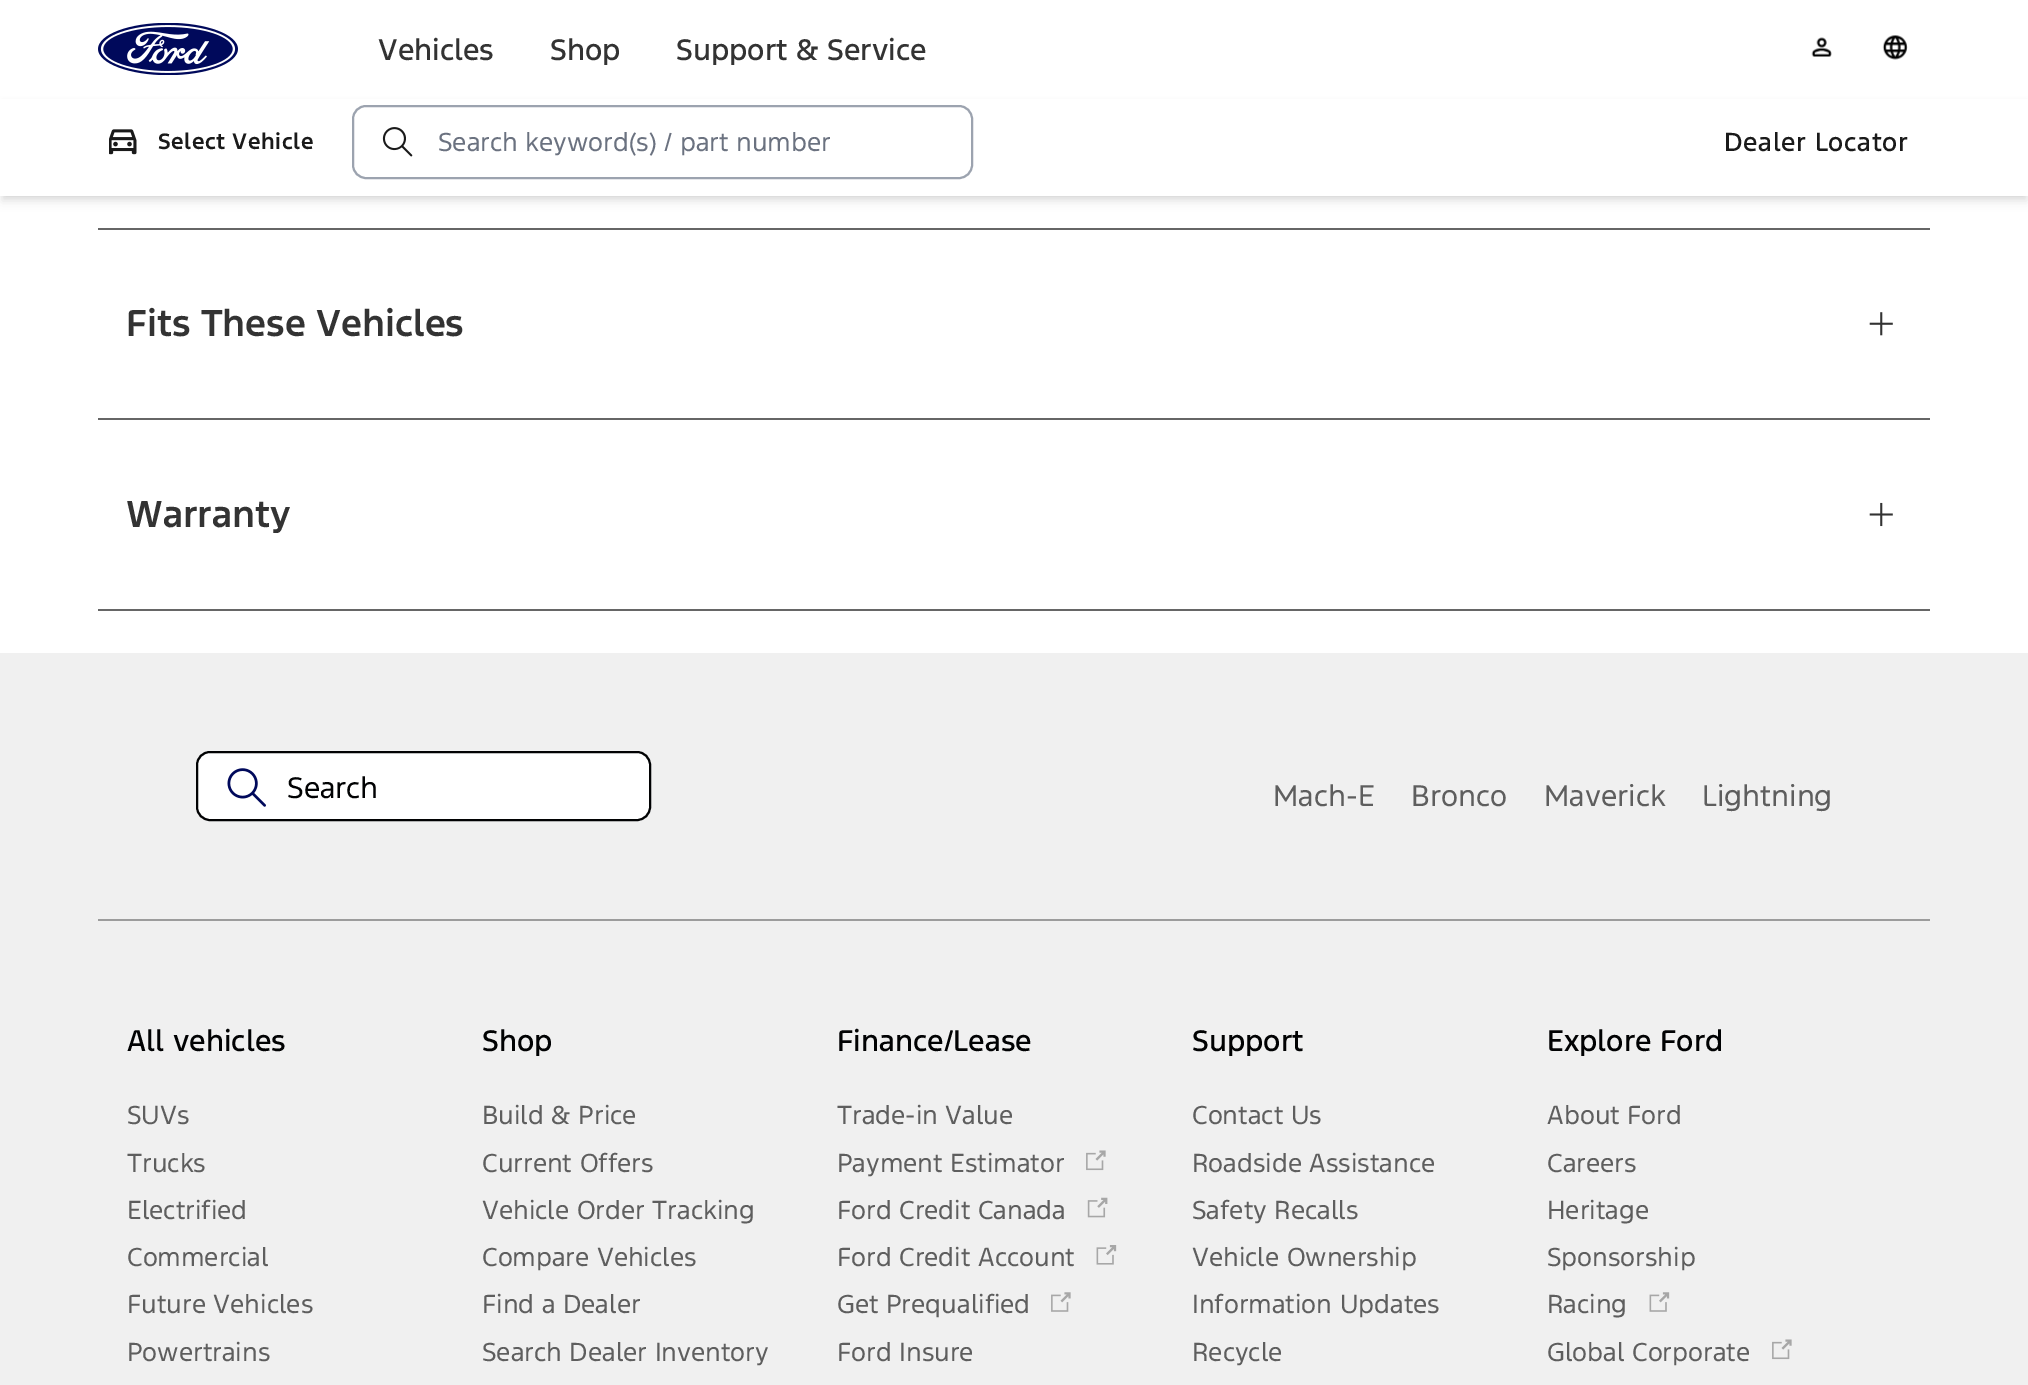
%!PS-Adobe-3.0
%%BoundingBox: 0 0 2028 1385
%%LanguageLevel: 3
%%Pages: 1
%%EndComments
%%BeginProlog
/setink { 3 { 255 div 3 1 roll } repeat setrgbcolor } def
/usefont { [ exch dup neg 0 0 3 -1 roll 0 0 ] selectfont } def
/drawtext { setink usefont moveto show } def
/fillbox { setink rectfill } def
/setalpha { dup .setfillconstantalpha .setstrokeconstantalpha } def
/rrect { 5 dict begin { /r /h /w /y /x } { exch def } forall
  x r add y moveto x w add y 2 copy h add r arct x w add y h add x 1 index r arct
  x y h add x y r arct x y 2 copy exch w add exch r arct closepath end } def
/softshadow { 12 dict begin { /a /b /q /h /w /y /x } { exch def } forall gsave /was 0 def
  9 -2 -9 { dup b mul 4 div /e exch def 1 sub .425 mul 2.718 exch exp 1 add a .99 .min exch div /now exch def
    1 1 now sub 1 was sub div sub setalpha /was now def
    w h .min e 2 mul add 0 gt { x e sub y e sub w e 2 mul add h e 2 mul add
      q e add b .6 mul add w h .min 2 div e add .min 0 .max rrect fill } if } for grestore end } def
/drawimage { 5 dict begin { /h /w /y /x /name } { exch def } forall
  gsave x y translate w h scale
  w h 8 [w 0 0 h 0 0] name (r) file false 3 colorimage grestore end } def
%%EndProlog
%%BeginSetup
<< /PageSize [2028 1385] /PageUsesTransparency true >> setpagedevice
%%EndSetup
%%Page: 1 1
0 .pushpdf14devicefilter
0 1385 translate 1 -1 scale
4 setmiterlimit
0 0 2028 1385 255 255 255 fillbox
(assets/img1.rgb) 98 23 140 52 drawimage
(Vehicles) 378 60 /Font-Medium 28 51 51 51 drawtext
(Shop) 550 60 /Font-Medium 28 51 51 51 drawtext
(Support & Service) 676 60 /Font-Medium 28 51 51 51 drawtext
(assets/img2.rgb) 1811 37 21 20 drawimage
(assets/img3.rgb) 1882 35 26 25 drawimage
0 0 0 setink
4 105 2021 91 0 3.5 0.1 softshadow
2 107 2025 94 0 5 0.1 softshadow
0 99 2028 97 255 255 255 fillbox
(assets/img4.rgb) 109 129 28 26 drawimage
/Font-SemiBold 21 usefont
26 26 26 setink
158 149 moveto 0.5 0 (Select Vehicle) ashow
156 163 175 setink
2 setlinewidth
353 106 619 72 13 rrect stroke
(assets/img5.rgb) 382 127 31 30 drawimage
(Search keyword\(s\) / part number) 438 151 /Font-Regular 24.5 107 114 128 drawtext
/Font-Medium 24.5 usefont
26 26 26 setink
1724 151 moveto 0.6 0 (Dealer Locator) ashow
98 228 1832 2 102 102 102 fillbox
(Fits These Vehicles) 126 336 /Font-SemiBold 35 51 51 51 drawtext
(assets/img6.rgb) 1869 312 24 24 drawimage
98 418 1832 2 102 102 102 fillbox
(Warranty) 126 527 /Font-SemiBold 35 51 51 51 drawtext
(assets/img7.rgb) 1869 502 24 25 drawimage
98 609 1832 2 102 102 102 fillbox
0 653 2028 732 240 240 240 fillbox
98 919 1832 2 156 156 156 fillbox
255 255 255 setink
197 752 453 68 13 rrect gsave fill grestore
1 2 3 setink
stroke
(assets/img8.rgb) 227 768 39 39 drawimage
(Search) 287 798 /Font-Regular 28 1 2 3 drawtext
(Mach-E) 1273 806 /Font-Regular 28 94 94 94 drawtext
(Bronco) 1411 806 /Font-Regular 28 94 94 94 drawtext
(Maverick) 1544 806 /Font-Regular 28 94 94 94 drawtext
(Lightning) 1702 806 /Font-Regular 28 94 94 94 drawtext
(All vehicles) 127 1051 /Font-Medium 28 1 2 3 drawtext
(SUVs) 127 1124 /Font-Regular 24.5 94 94 94 drawtext
(Trucks) 127 1172 /Font-Regular 24.5 94 94 94 drawtext
(Electrified) 127 1219 /Font-Regular 24.5 94 94 94 drawtext
(Commercial) 127 1266 /Font-Regular 24.5 94 94 94 drawtext
(Future Vehicles) 127 1313 /Font-Regular 24.5 94 94 94 drawtext
(Powertrains) 127 1361 /Font-Regular 24.5 94 94 94 drawtext
(Shop) 482 1051 /Font-Medium 28 1 2 3 drawtext
(Build & Price) 482 1124 /Font-Regular 24.5 94 94 94 drawtext
(Current Offers) 482 1172 /Font-Regular 24.5 94 94 94 drawtext
(Vehicle Order Tracking) 482 1219 /Font-Regular 24.5 94 94 94 drawtext
(Compare Vehicles) 482 1266 /Font-Regular 24.5 94 94 94 drawtext
(Find a Dealer) 482 1313 /Font-Regular 24.5 94 94 94 drawtext
(Search Dealer Inventory) 482 1361 /Font-Regular 24.5 94 94 94 drawtext
(Finance/Lease) 837 1051 /Font-Medium 28 1 2 3 drawtext
(Trade-in Value) 837 1124 /Font-Regular 24.5 94 94 94 drawtext
(Payment Estimator) 837 1172 /Font-Regular 24.5 94 94 94 drawtext
(assets/img9.rgb) 1086 1150 20 21 drawimage
(Ford Credit Canada) 837 1219 /Font-Regular 24.5 94 94 94 drawtext
(assets/img10.rgb) 1087 1197 21 21 drawimage
(Ford Credit Account) 837 1266 /Font-Regular 24.5 94 94 94 drawtext
(assets/img11.rgb) 1096 1245 21 20 drawimage
(Get Prequalified) 837 1313 /Font-Regular 24.5 94 94 94 drawtext
(assets/img12.rgb) 1051 1292 20 20 drawimage
(Ford Insure) 837 1361 /Font-Regular 24.5 94 94 94 drawtext
(Support) 1192 1051 /Font-Medium 28 1 2 3 drawtext
(Contact Us) 1192 1124 /Font-Regular 24.5 94 94 94 drawtext
(Roadside Assistance) 1192 1172 /Font-Regular 24.5 94 94 94 drawtext
(Safety Recalls) 1192 1219 /Font-Regular 24.5 94 94 94 drawtext
(Vehicle Ownership) 1192 1266 /Font-Regular 24.5 94 94 94 drawtext
(Information Updates) 1192 1313 /Font-Regular 24.5 94 94 94 drawtext
(Recycle) 1192 1361 /Font-Regular 24.5 94 94 94 drawtext
(Explore Ford) 1547 1051 /Font-Medium 28 1 2 3 drawtext
(About Ford) 1547 1124 /Font-Regular 24.5 94 94 94 drawtext
(Careers) 1547 1172 /Font-Regular 24.5 94 94 94 drawtext
(Heritage) 1547 1219 /Font-Regular 24.5 94 94 94 drawtext
(Sponsorship) 1547 1266 /Font-Regular 24.5 94 94 94 drawtext
(Racing) 1547 1313 /Font-Regular 24.5 94 94 94 drawtext
(assets/img13.rgb) 1649 1292 21 20 drawimage
(Global Corporate) 1547 1361 /Font-Regular 24.5 94 94 94 drawtext
(assets/img9.rgb) 1772 1339 20 21 drawimage
.poppdf14devicefilter showpage
%%EOF
